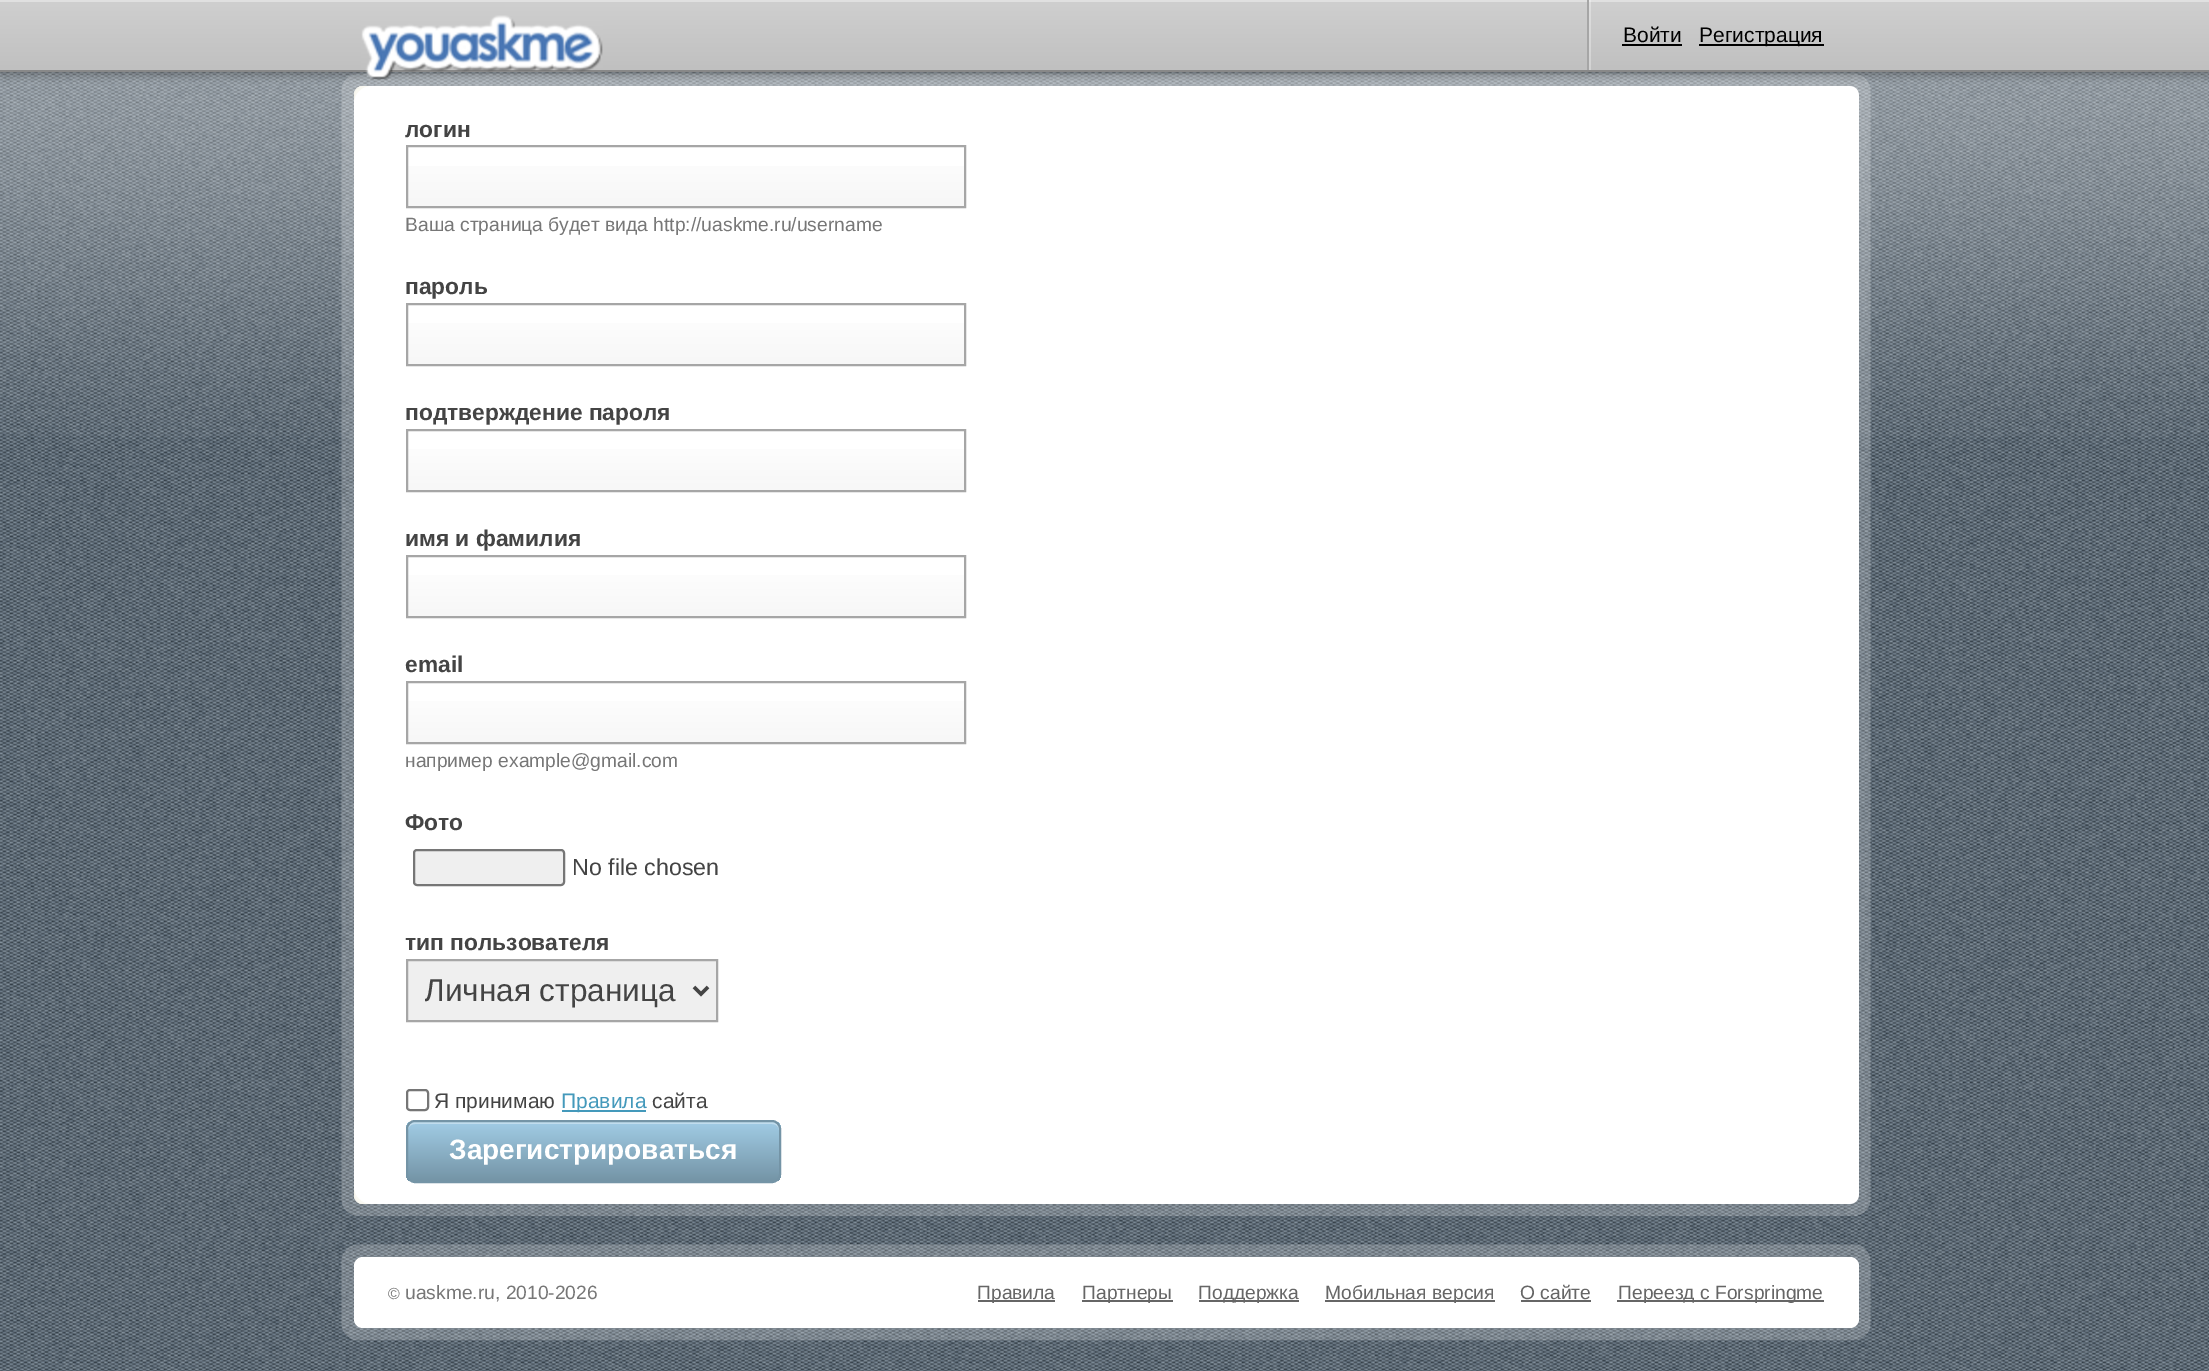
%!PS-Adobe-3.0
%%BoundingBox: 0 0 2209 1371
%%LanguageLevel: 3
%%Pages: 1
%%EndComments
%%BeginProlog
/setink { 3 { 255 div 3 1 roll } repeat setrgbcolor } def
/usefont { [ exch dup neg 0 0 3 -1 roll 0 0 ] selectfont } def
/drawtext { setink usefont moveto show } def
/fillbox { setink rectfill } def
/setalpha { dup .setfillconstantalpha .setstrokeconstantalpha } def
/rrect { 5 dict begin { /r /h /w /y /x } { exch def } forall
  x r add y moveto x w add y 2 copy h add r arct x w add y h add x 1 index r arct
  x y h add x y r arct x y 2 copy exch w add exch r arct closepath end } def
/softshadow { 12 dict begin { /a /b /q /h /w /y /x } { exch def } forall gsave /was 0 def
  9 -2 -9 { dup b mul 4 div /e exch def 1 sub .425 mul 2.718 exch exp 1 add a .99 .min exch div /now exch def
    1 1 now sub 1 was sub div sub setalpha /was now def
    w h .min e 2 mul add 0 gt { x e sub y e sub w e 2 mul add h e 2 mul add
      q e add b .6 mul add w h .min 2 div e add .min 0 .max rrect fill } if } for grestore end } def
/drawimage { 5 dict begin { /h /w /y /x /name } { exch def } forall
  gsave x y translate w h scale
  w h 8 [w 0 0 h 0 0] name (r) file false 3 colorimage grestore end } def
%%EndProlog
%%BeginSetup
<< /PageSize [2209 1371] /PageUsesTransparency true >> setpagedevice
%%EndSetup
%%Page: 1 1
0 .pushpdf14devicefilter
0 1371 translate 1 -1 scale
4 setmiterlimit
0 0 2209 1371 255 255 255 fillbox
(assets/img1.rgb) 0 72 2209 1299 drawimage
(assets/img5.rgb) 0 72 2209 365 drawimage
354 86 1505 1118 9 rrect fill
(assets/img3.rgb) 341 73 1530 1143 drawimage
250 249 242 setink
363 86 moveto 844 86 lineto 844 1204 lineto 363 1204 lineto 358 1204 354 1200 354 1195 curveto 354 95 lineto 354 90 358 86 363 86 curveto closepath fill
245 244 236 setink
363 86 moveto 358 86 354 90 354 95 curveto 354 1195 lineto 354 1200 358 1204 363 1204 curveto 364 1204 lineto 359 1204 355 1200 355 1195 curveto 355 94 lineto 355 90 359 86 364 86 curveto closepath fill
255 255 255 setink
354 86 1505 1118 18 rrect fill
0 0 0 setink
0 2 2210 72 0 4.5 0.35 softshadow
gsave 0 2 moveto 2209 2 lineto 2209 70 lineto 0 70 lineto closepath clip newpath
<< /ShadingType 2 /ColorSpace /DeviceRGB /Coords [0 0 0 70] /Extend [true true] /Function << /FunctionType 2 /Domain [0 1] /C0 [0.812 0.812 0.812] /C1 [0.753 0.753 0.753] /N 1 >> >> shfill grestore
0 0 2209 2 224 224 224 fillbox
0 70 2209 2 136 136 136 fillbox
(assets/img2.rgb) 361 15 242 65 drawimage
0.3 setalpha
1589 0 2 70 255 255 255 fillbox
1 setalpha
1587 0 2 70 166 166 166 fillbox
(Войти) 1623 42 /LiberationSans-Regular 21 0 0 0 drawtext
1622 44 60 2 0 0 0 fillbox
1699 44 125 2 0 0 0 fillbox
(Регистрация) 1699 42 /LiberationSans-Regular 21 0 0 0 drawtext
(логин) 405 137 /LiberationSans-Bold 22.75 68 68 68 drawtext
gsave 408 166 moveto 964 166 lineto 964 206 lineto 408 206 lineto closepath clip newpath
<< /ShadingType 2 /ColorSpace /DeviceRGB /Coords [408 147 408 207] /Extend [true true] /Function << /FunctionType 2 /Domain [0 1] /C0 [1 1 1] /C1 [0.969 0.969 0.969] /N 1 >> >> shfill grestore
166 166 166 setink
2 setlinewidth
407 146 558 61 rectstroke
(Ваша страница будет вида http://uaskme.ru/username) 405 231 /LiberationSans-Regular 19.25 119 119 119 drawtext
(пароль) 405 294 /LiberationSans-Bold 22.75 68 68 68 drawtext
gsave 408 323 moveto 964 323 lineto 964 364 lineto 408 364 lineto closepath clip newpath
<< /ShadingType 2 /ColorSpace /DeviceRGB /Coords [408 305 408 364] /Extend [true true] /Function << /FunctionType 2 /Domain [0 1] /C0 [1 1 1] /C1 [0.969 0.969 0.969] /N 1 >> >> shfill grestore
166 166 166 setink
407 304 558 61 rectstroke
(подтверждение пароля) 405 420 /LiberationSans-Bold 22.75 68 68 68 drawtext
gsave 408 449 moveto 964 449 lineto 964 490 lineto 408 490 lineto closepath clip newpath
<< /ShadingType 2 /ColorSpace /DeviceRGB /Coords [408 431 408 490] /Extend [true true] /Function << /FunctionType 2 /Domain [0 1] /C0 [1 1 1] /C1 [0.969 0.969 0.969] /N 1 >> >> shfill grestore
166 166 166 setink
407 430 558 61 rectstroke
(имя и фамилия) 405 546 /LiberationSans-Bold 22.75 68 68 68 drawtext
gsave 408 575 moveto 964 575 lineto 964 616 lineto 408 616 lineto closepath clip newpath
<< /ShadingType 2 /ColorSpace /DeviceRGB /Coords [408 557 408 616] /Extend [true true] /Function << /FunctionType 2 /Domain [0 1] /C0 [1 1 1] /C1 [0.969 0.969 0.969] /N 1 >> >> shfill grestore
166 166 166 setink
407 556 558 61 rectstroke
(email) 405 672 /LiberationSans-Bold 22.75 68 68 68 drawtext
gsave 408 701 moveto 964 701 lineto 964 742 lineto 408 742 lineto closepath clip newpath
<< /ShadingType 2 /ColorSpace /DeviceRGB /Coords [408 683 408 742] /Extend [true true] /Function << /FunctionType 2 /Domain [0 1] /C0 [1 1 1] /C1 [0.969 0.969 0.969] /N 1 >> >> shfill grestore
166 166 166 setink
407 682 558 61 rectstroke
(например example@gmail.com) 405 767 /LiberationSans-Regular 19.25 119 119 119 drawtext
(Фото) 405 830 /LiberationSans-Bold 22.75 68 68 68 drawtext
239 239 239 setink
414 850 150 35 3 rrect gsave fill grestore
118 118 118 setink
stroke
(No file chosen) 572 875 /LiberationSans-Regular 23.25 68 68 68 drawtext
(тип пользователя) 405 950 /LiberationSans-Bold 22.75 68 68 68 drawtext
239 239 239 setink
407 960 moveto 717 960 lineto 717 1021 lineto 407 1021 lineto closepath gsave fill grestore
166 166 166 setink
stroke
68 68 68 setink
3.5 setlinewidth
694 987 moveto 701 994 lineto 708 987 lineto stroke
gsave
425 971 252 39 rectclip
(Личная страница) 424 1001 /LiberationSans-Regular 31.5 68 68 68 drawtext
grestore
118 118 118 setink
2 setlinewidth
407 1090 21 20 3 rrect stroke
(Я принимаю) 434 1108 /LiberationSans-Regular 21 68 68 68 drawtext
562 1110 84 2 68 153 187 fillbox
(Правила) 561 1108 /LiberationSans-Regular 21 68 153 187 drawtext
(сайта) 652 1108 /LiberationSans-Regular 21 68 68 68 drawtext
gsave
406 1120 375 63 9 rrect clip newpath
gsave 406 1122 moveto 781 1122 lineto 781 1181 lineto 406 1181 lineto closepath clip newpath
<< /ShadingType 2 /ColorSpace /DeviceRGB /Coords [408 1122 408 1181] /Extend [true true] /Function << /FunctionType 2 /Domain [0 1] /C0 [0.631 0.8 0.898] /C1 [0.455 0.58 0.651] /N 1 >> >> shfill grestore
grestore
0.35 setalpha
255 255 255 setink
415 1124 moveto 772 1124 lineto 776 1124 779 1127 779 1130 curveto 779 1129 lineto 779 1125 776 1122 772 1122 curveto 415 1122 lineto 411 1122 408 1125 408 1129 curveto 408 1130 lineto 408 1127 411 1124 415 1124 curveto closepath fill
1 setalpha
116 148 166 setink
407 1121 373 61 8 rrect stroke
(Зарегистрироваться) 449 1159 /LiberationSans-Bold 28 255 255 255 drawtext
(assets/img4.rgb) 341 1244 1530 97 drawimage
354 1257 1505 71 9 rrect fill
(©) 388 1299 /LiberationSans-Regular 16 119 119 119 drawtext
(uaskme.ru, 2010-2026) 405 1299 /LiberationSans-Regular 19.25 119 119 119 drawtext
978 1300 77 2 102 102 102 fillbox
(Правила) 977 1299 /LiberationSans-Regular 19.25 102 102 102 drawtext
1082 1300 91 2 102 102 102 fillbox
(Партнеры) 1082 1299 /LiberationSans-Regular 19.25 102 102 102 drawtext
1199 1300 100 2 102 102 102 fillbox
(Поддержка) 1198 1299 /LiberationSans-Regular 19.25 102 102 102 drawtext
1325 1300 170 2 102 102 102 fillbox
(Мобильная версия) 1325 1299 /LiberationSans-Regular 19.25 102 102 102 drawtext
(О сайте) 1520 1299 /LiberationSans-Regular 19.25 102 102 102 drawtext
1521 1300 70 2 102 102 102 fillbox
1617 1300 207 2 102 102 102 fillbox
(Переезд с Forspringme) 1618 1299 /LiberationSans-Regular 19.25 102 102 102 drawtext
.poppdf14devicefilter showpage
%%EOF
